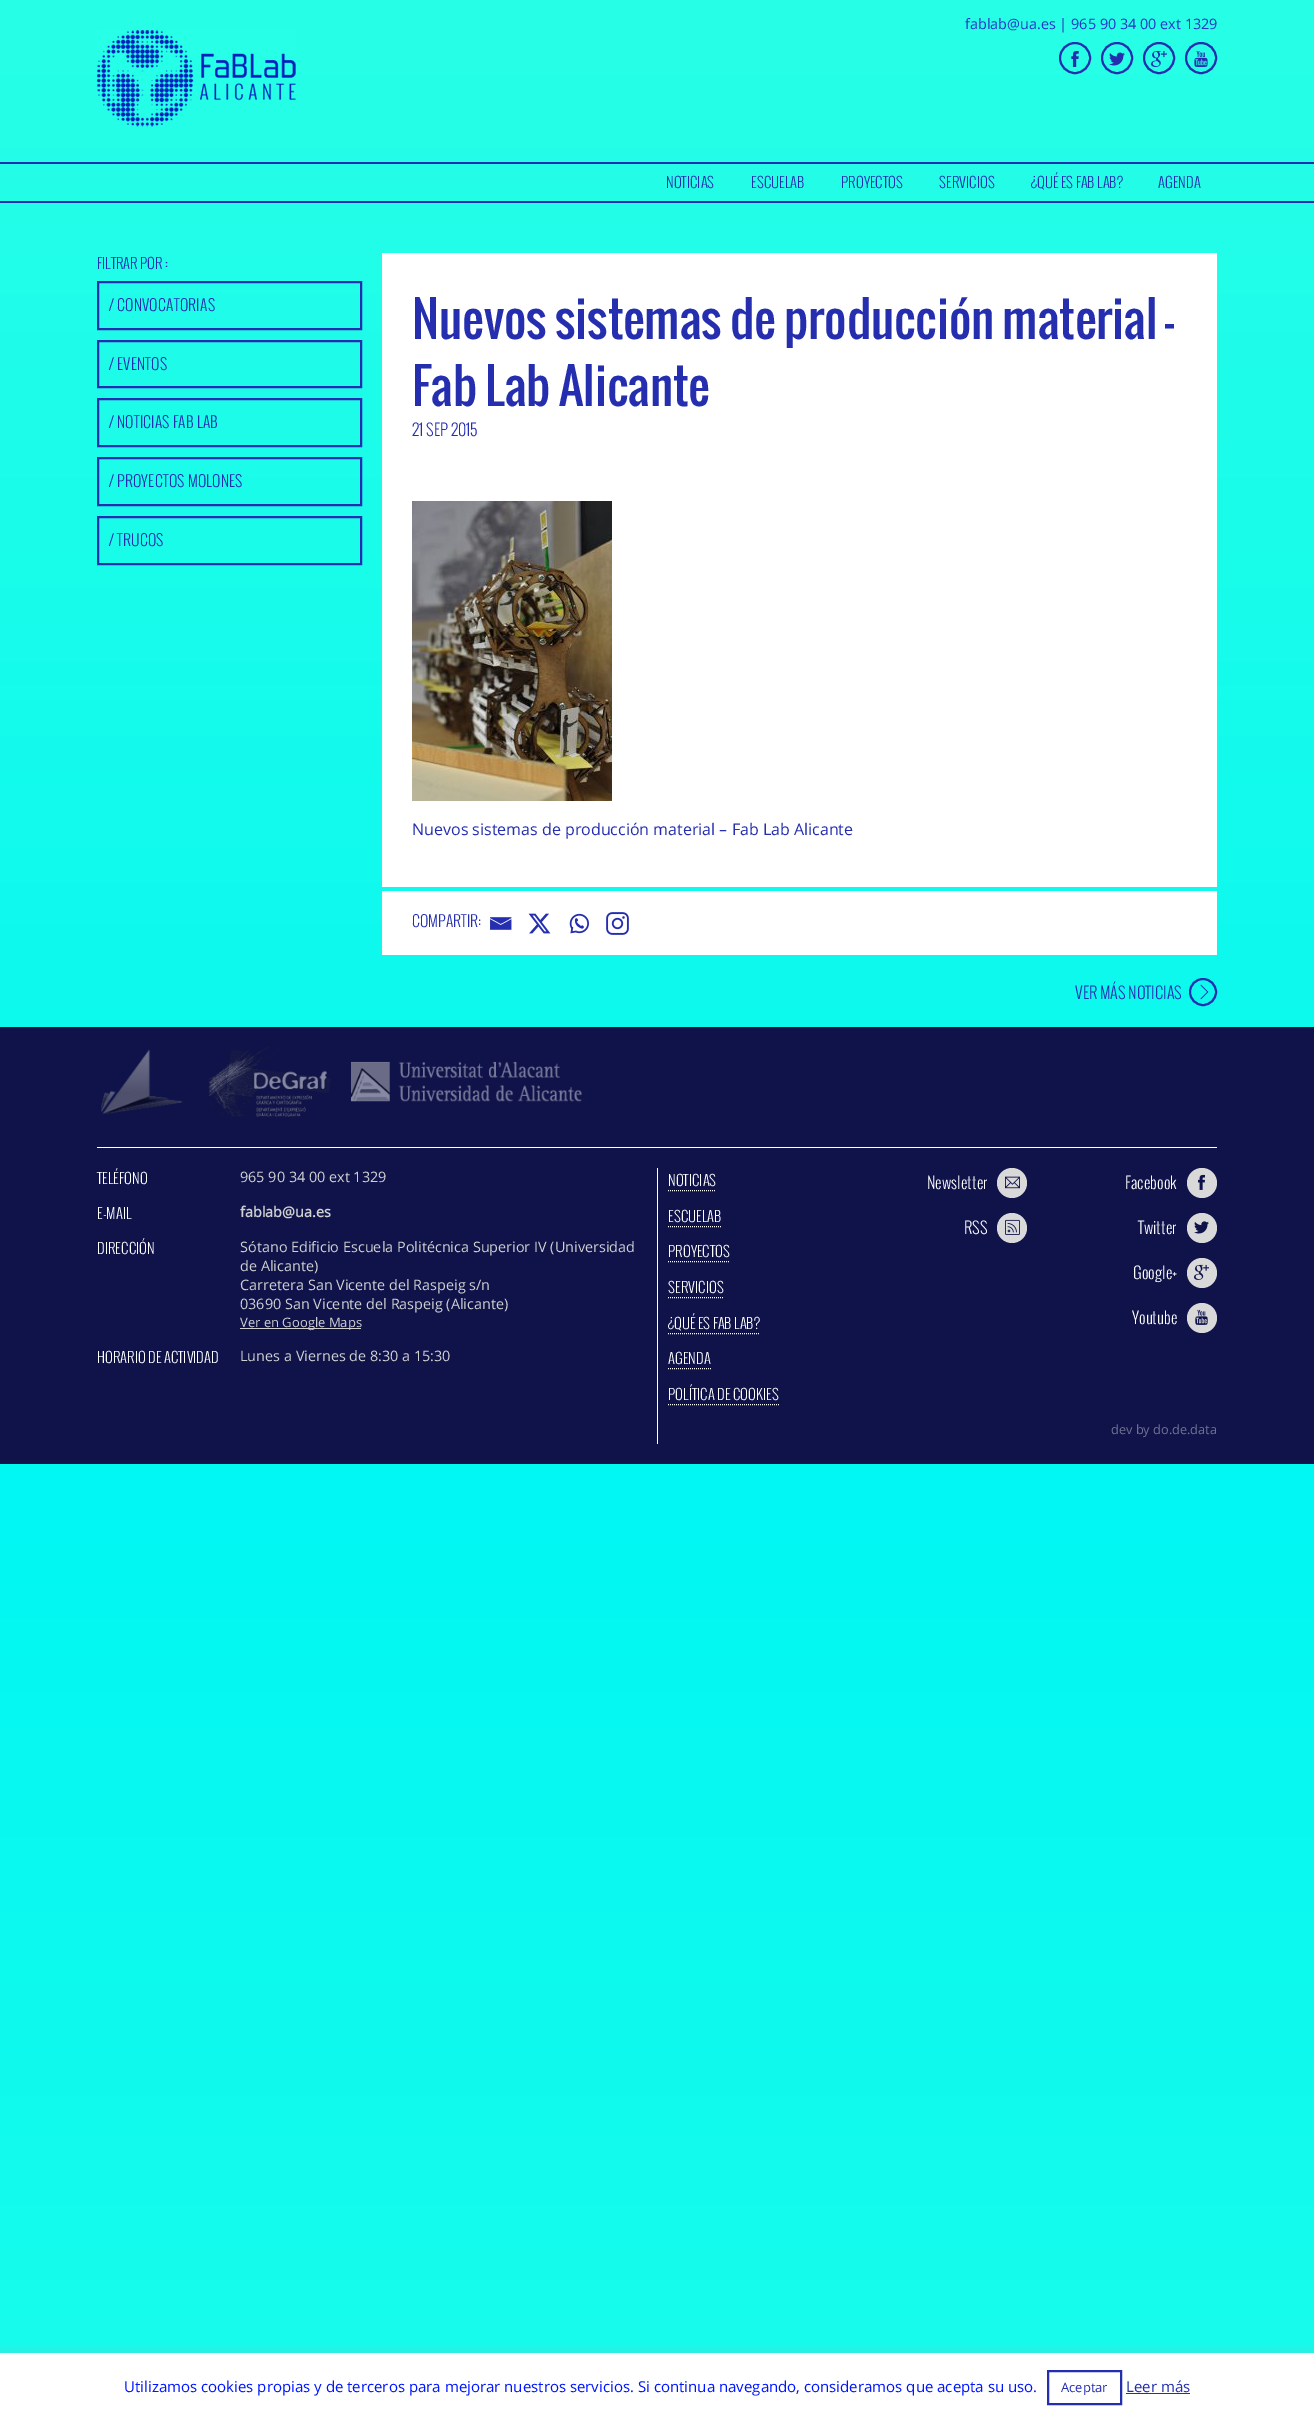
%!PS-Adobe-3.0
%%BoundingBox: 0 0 1314 2417
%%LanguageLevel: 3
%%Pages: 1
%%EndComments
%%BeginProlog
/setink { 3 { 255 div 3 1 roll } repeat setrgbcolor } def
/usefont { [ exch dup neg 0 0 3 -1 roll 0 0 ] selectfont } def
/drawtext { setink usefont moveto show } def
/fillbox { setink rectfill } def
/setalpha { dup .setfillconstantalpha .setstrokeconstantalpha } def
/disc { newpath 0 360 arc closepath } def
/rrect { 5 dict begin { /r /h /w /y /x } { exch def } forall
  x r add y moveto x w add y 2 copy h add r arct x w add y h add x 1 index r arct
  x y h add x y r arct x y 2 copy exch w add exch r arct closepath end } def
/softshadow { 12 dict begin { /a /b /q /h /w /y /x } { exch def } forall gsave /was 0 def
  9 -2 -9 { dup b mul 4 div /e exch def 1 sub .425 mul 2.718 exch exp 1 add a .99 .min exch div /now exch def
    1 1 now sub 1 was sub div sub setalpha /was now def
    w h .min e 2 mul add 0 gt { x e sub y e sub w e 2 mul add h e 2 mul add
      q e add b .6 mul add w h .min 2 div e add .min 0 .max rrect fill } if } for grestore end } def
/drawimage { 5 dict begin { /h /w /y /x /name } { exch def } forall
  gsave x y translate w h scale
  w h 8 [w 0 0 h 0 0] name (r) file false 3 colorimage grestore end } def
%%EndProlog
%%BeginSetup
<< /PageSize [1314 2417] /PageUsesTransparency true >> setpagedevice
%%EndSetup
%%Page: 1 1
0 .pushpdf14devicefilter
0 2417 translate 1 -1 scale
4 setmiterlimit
0 0 1314 2417 255 255 255 fillbox
gsave 0 0 moveto 1314 0 lineto 1314 2353 lineto 0 2353 lineto closepath clip newpath
<< /ShadingType 2 /ColorSpace /DeviceRGB /Coords [657 0 657 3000] /Extend [true true] /Function << /FunctionType 3 /Domain [0 1] /Functions [<< /FunctionType 2 /Domain [0 1] /C0 [0.157 1 0.902] /C1 [0 0.969 0.953] /N 1 >> << /FunctionType 2 /Domain [0 1] /C0 [0 0.969 0.953] /C1 [0.157 1 0.902] /N 1 >>] /Bounds [0.5] /Encode [0 1 0 1] >> >> shfill grestore
(fablab@ua.es | 965 90 34 00 ext 1329) 965 29 /OpenSans-Regular 14.4 40 52 196 drawtext
36 46 175 setink
2 setlinewidth
1075 58 15 disc stroke
(assets/img1.rgb) 1071 51 8 16 drawimage
1117 58 15 disc stroke
(assets/img2.rgb) 1109 52 16 14 drawimage
1159 58 15 disc stroke
(assets/img3.rgb) 1151 51 16 16 drawimage
1201 58 15 disc stroke
(assets/img4.rgb) 1194 51 14 16 drawimage
(assets/img5.rgb) 97 30 199 97 drawimage
0 162 1314 2 36 46 175 fillbox
0 201 1314 2 36 46 175 fillbox
(NOTICIAS) 666 188 /Oswald-Light 14.4 36 46 175 drawtext
(ESCUELAB) 751 188 /Oswald-Light 14.4 36 46 175 drawtext
(PROYECTOS) 841 188 /Oswald-Light 14.4 36 46 175 drawtext
(SERVICIOS) 939 188 /Oswald-Light 14.4 36 46 175 drawtext
(¿QUÉ ES FAB LAB?) 1031 188 /Oswald-Light 14.4 36 46 175 drawtext
(AGENDA) 1158 188 /Oswald-Light 14.4 36 46 175 drawtext
(FILTRAR POR :) 97 269 /Oswald-Light 14.4 36 46 175 drawtext
98 282 263 47 rectstroke
/Oswald-Light 15.25 usefont
109 311 moveto 0.25 0 (/ CONVOCATORIAS) ashow
98 341 263 46 rectstroke
109 370 moveto 0.25 0 (/ EVENTOS) ashow
98 399 263 47 rectstroke
109 428 moveto 0.25 0 (/ NOTICIAS FAB LAB) ashow
98 458 263 47 rectstroke
109 487 moveto 0.25 0 (/ PROYECTOS MOLONES) ashow
98 517 263 47 rectstroke
109 546 moveto 0.25 0 (/ TRUCOS) ashow
382 253 835 634 255 255 255 fillbox
(Nuevos sistemas de producción material –) 412 339 /Oswald-Regular 48 36 46 175 drawtext
(Fab Lab Alicante) 412 406 /Oswald-Regular 48 36 46 175 drawtext
(21 SEP 2015) 412 436 /Oswald-Light 16 36 46 175 drawtext
(assets/img6.rgb) 412 501 200 300 drawimage
(Nuevos sistemas de producción material – Fab Lab Alicante) 412 835 /OpenSans-Regular 16 36 46 175 drawtext
382 891 835 64 255 255 255 fillbox
(COMPARTIR:) 412 927 /Oswald-Light 15.25 36 46 175 drawtext
(assets/img7.rgb) 490 917 22 13 drawimage
(assets/img8.rgb) 528 913 23 21 drawimage
(assets/img9.rgb) 569 913 20 21 drawimage
(assets/img10.rgb) 606 912 23 23 drawimage
(VER MÁS NOTICIAS) 1075 999 /Oswald-Light 16 36 46 175 drawtext
1203 992 13 disc stroke
(assets/img11.rgb) 1200 984 9 16 drawimage
0 1027 1314 437 15 19 73 fillbox
97 1147 1120 1 255 255 255 fillbox
(assets/img12.rgb) 101 1049 82 65 drawimage
(assets/img13.rgb) 208 1047 123 70 drawimage
(assets/img14.rgb) 351 1061 231 41 drawimage
(TELÉFONO) 97 1184 /Oswald-Light 14.4 255 255 255 drawtext
(965 90 34 00 ext 1329) 240 1182 /OpenSans-Regular 14.4 208 208 208 drawtext
(E-MAIL) 97 1219 /Oswald-Light 14.4 255 255 255 drawtext
(fablab@ua.es) 240 1217 /OpenSans-Bold 14.4 208 208 208 drawtext
(DIRECCIÓN) 97 1254 /Oswald-Light 14.4 255 255 255 drawtext
(Sótano Edificio Escuela Politécnica Superior IV \(Universidad) 240 1252 /OpenSans-Regular 14.4 208 208 208 drawtext
(de Alicante\)) 240 1271 /OpenSans-Regular 14.4 208 208 208 drawtext
(Carretera San Vicente del Raspeig s/n) 240 1290 /OpenSans-Regular 14.4 208 208 208 drawtext
(03690 San Vicente del Raspeig \(Alicante\)) 240 1309 /OpenSans-Regular 14.4 208 208 208 drawtext
240 1328 121 1 208 208 208 fillbox
(Ver en Google Maps) 240 1327 /OpenSans-Regular 13 208 208 208 drawtext
(HORARIO DE ACTIVIDAD) 97 1363 /Oswald-Light 14.4 255 255 255 drawtext
(Lunes a Viernes de 8:30 a 15:30) 240 1361 /OpenSans-Regular 14.4 208 208 208 drawtext
657 1168 1 276 255 255 255 fillbox
(NOTICIAS) 668 1186 /Oswald-Light 14.4 255 255 255 drawtext
1 setlinewidth
[1 1] 0 setdash
668 1190.5 moveto 716 1190.5 lineto stroke
(ESCUELAB) 668 1222 /Oswald-Light 14.4 255 255 255 drawtext
668 1226.5 moveto 721 1226.5 lineto stroke
(PROYECTOS) 668 1257 /Oswald-Light 14.4 255 255 255 drawtext
668 1261.5 moveto 730 1261.5 lineto stroke
(SERVICIOS) 668 1293 /Oswald-Light 14.4 255 255 255 drawtext
668 1297.5 moveto 724 1297.5 lineto stroke
(¿QUÉ ES FAB LAB?) 668 1329 /Oswald-Light 14.4 255 255 255 drawtext
668 1333.5 moveto 760 1333.5 lineto stroke
(AGENDA) 668 1364 /Oswald-Light 14.4 255 255 255 drawtext
668 1368.5 moveto 711 1368.5 lineto stroke
(POLÍTICA DE COOKIES) 668 1400 /Oswald-Light 14.4 255 255 255 drawtext
668 1404.5 moveto 779 1404.5 lineto stroke
(Newsletter) 927 1189 /Oswald-Light 16 255 255 255 drawtext
217 217 217 setink
1012 1183 15 disc fill
(assets/img15.rgb) 1005 1176 15 13 drawimage
(RSS) 964 1234 /Oswald-Light 16 255 255 255 drawtext
217 217 217 setink
1012 1228 15 disc fill
(assets/img16.rgb) 1005 1219 15 16 drawimage
(Facebook) 1125 1189 /Oswald-Light 16 255 255 255 drawtext
217 217 217 setink
1202 1183 15 disc fill
(assets/img17.rgb) 1198 1174 7 16 drawimage
(Twitter) 1138 1234 /Oswald-Light 16 255 255 255 drawtext
217 217 217 setink
1202 1228 15 disc fill
(assets/img18.rgb) 1194 1221 15 13 drawimage
(Google+) 1133 1279 /Oswald-Light 16 255 255 255 drawtext
217 217 217 setink
1202 1273 15 disc fill
(assets/img19.rgb) 1194 1264 15 16 drawimage
(Youtube) 1132 1324 /Oswald-Light 16 255 255 255 drawtext
217 217 217 setink
1202 1318 15 disc fill
(assets/img20.rgb) 1195 1309 13 16 drawimage
(dev by do.de.data) 1111 1434 /OpenSans-Regular 12.75 111 113 146 drawtext
172 171 171 setink
0 2352 1314 64 0 5 0.3 softshadow
0 2353 1314 64 255 255 255 fillbox
(Utilizamos cookies propias y de terceros para mejorar nuestros servicios. Si continua navegando, consideramos que acepta su uso.) 124 2392 /OpenSans-Regular 15 0 21 255 drawtext
36 46 175 setink
2 setlinewidth
[] 0 setdash
1048 2371 73 33 rectstroke
(Aceptar) 1061 2392 /OpenSans-Regular 13 36 46 175 drawtext
(Leer más) 1126 2392 /OpenSans-Regular 15 36 46 175 drawtext
1126 2393 64 1 36 46 175 fillbox
.poppdf14devicefilter showpage
%%EOF
